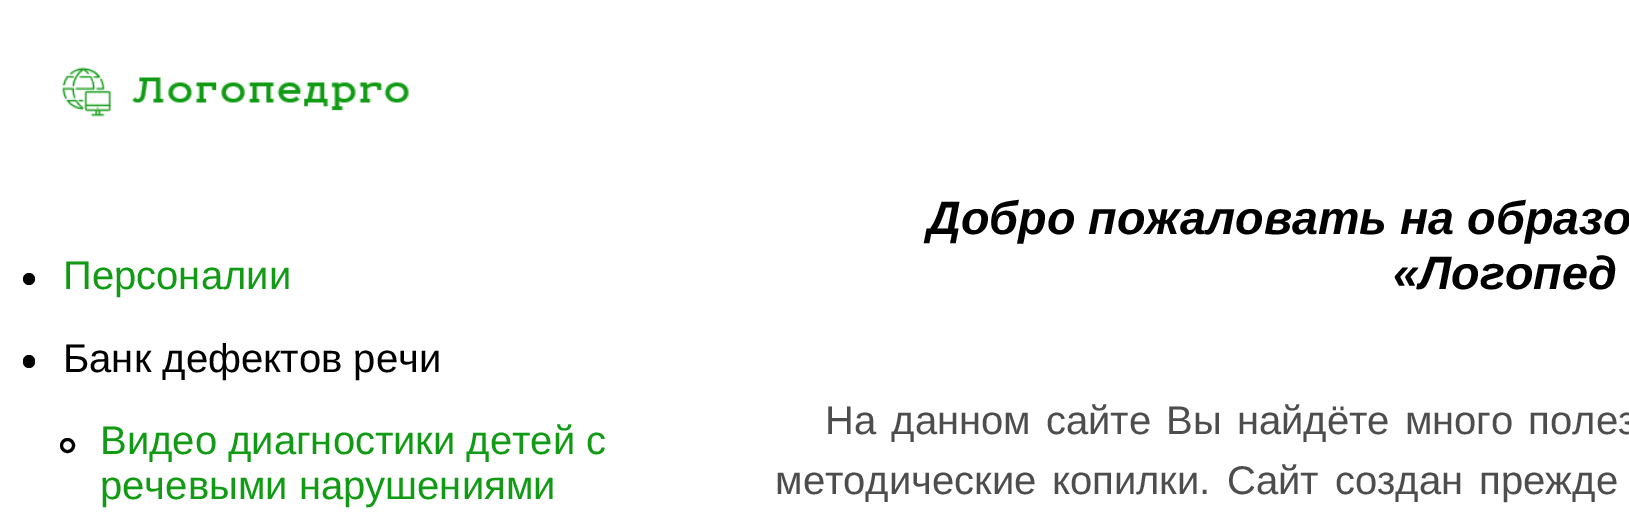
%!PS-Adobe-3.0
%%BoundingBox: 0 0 1629 514
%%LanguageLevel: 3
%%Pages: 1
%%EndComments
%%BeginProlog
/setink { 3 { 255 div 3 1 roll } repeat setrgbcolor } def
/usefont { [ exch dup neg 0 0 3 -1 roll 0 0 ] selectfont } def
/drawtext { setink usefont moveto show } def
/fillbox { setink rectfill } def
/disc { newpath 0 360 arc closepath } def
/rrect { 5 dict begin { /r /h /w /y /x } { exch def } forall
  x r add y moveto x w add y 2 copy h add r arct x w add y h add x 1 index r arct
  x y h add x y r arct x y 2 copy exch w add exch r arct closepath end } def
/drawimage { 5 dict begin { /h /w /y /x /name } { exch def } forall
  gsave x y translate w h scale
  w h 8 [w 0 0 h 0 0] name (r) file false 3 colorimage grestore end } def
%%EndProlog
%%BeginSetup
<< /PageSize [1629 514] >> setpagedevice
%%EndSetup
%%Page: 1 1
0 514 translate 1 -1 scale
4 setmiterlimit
0 0 1629 514 255 255 255 fillbox
(assets/img1.rgb) 62 67 347 50 drawimage
0 0 0 setink
29 279 6 disc fill
(Персоналии) 63 289 /LiberationSans-Regular 40 17 155 21 drawtext
0 0 0 setink
23 355 12 13 6 rrect fill
(Банк дефектов речи) 63 372 /LiberationSans-Regular 40 0 0 0 drawtext
3 setlinewidth
67.5 445.5 6 disc stroke
(Видео диагностики детей с) 100 454 /LiberationSans-Regular 40 17 155 21 drawtext
(речевыми нарушениями) 100 499 /LiberationSans-Regular 40 17 155 21 drawtext
(Добро пожаловать на образо) 927 234 /LiberationSans-BoldItalic 46.75 0 0 0 drawtext
(«Логопед) 1393 289 /LiberationSans-BoldItalic 46.75 0 0 0 drawtext
/LiberationSans-Regular 40 usefont
77 77 77 setink
825 434 moveto 4 0 32 (На данном сайте Вы найдёте много полез) widthshow
775 494 moveto 5 0 32 (методические копилки.) widthshow
1227 494 moveto 5 0 32 (Сайт создан прежде) widthshow
showpage
%%EOF
